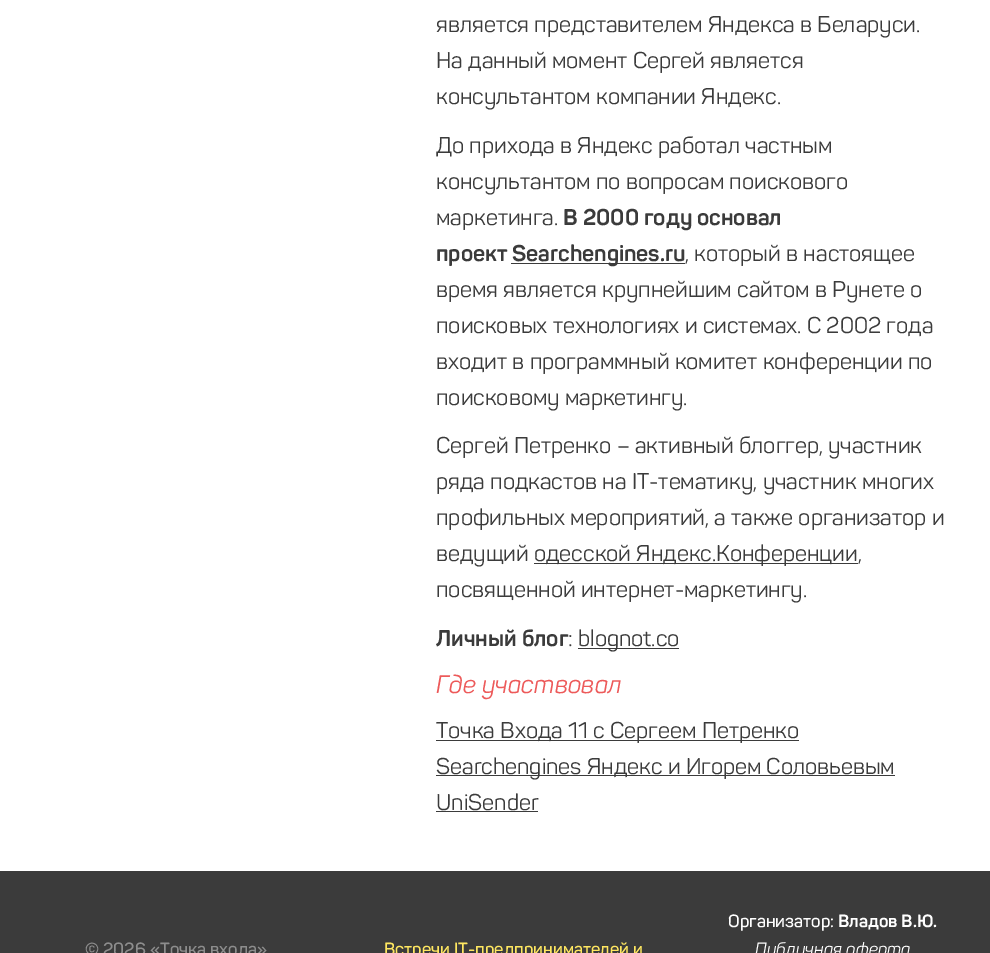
%!PS-Adobe-3.0
%%BoundingBox: 0 0 990 953
%%LanguageLevel: 3
%%Pages: 1
%%EndComments
%%BeginProlog
/setink { 3 { 255 div 3 1 roll } repeat setrgbcolor } def
/usefont { [ exch dup neg 0 0 3 -1 roll 0 0 ] selectfont } def
/drawtext { setink usefont moveto show } def
/fillbox { setink rectfill } def
%%EndProlog
%%BeginSetup
<< /PageSize [990 953] >> setpagedevice
%%EndSetup
%%Page: 1 1
0 953 translate 1 -1 scale
4 setmiterlimit
0 0 990 953 255 255 255 fillbox
(является представителем Яндекса в Беларуси.) 436 32 /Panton-Regular 22.5 59 59 59 drawtext
(На данный момент Сергей является) 436 68 /Panton-Regular 22.5 59 59 59 drawtext
(консультантом компании Яндекс.) 436 104 /Panton-Regular 22.5 59 59 59 drawtext
(До прихода в Яндекс работал частным) 436 153 /Panton-Regular 22.5 59 59 59 drawtext
(консультантом по вопросам поискового) 436 189 /Panton-Regular 22.5 59 59 59 drawtext
(маркетинга.) 436 225 /Panton-Regular 22.5 59 59 59 drawtext
(В 2000 году основал) 563 225 /Panton-Bold 22.5 59 59 59 drawtext
(проект) 436 261 /Panton-Bold 22.5 59 59 59 drawtext
511 263 174 1 59 59 59 fillbox
(Searchengines.ru) 512 261 /Panton-Bold 22.5 59 59 59 drawtext
(, который в настоящее) 685 261 /Panton-Regular 22.5 59 59 59 drawtext
(время является крупнейшим сайтом в Рунете о) 436 297 /Panton-Regular 22.5 59 59 59 drawtext
(поисковых технологиях и системах. С 2002 года) 436 333 /Panton-Regular 22.5 59 59 59 drawtext
(входит в программный комитет конференции по) 436 369 /Panton-Regular 22.5 59 59 59 drawtext
(поисковому маркетингу.) 436 405 /Panton-Regular 22.5 59 59 59 drawtext
(Сергей Петренко – активный блоггер, участник) 436 453 /Panton-Regular 22.5 59 59 59 drawtext
(ряда подкастов на IT-тематику, участник многих) 436 489 /Panton-Regular 22.5 59 59 59 drawtext
(профильных мероприятий, а также организатор и) 436 525 /Panton-Regular 22.5 59 59 59 drawtext
(ведущий) 436 561 /Panton-Regular 22.5 59 59 59 drawtext
534 563 324 1 59 59 59 fillbox
(одесской Яндекс.Конференции,) 534 561 /Panton-Regular 22.5 59 59 59 drawtext
(посвященной интернет-маркетингу.) 436 597 /Panton-Regular 22.5 59 59 59 drawtext
(Личный блог) 436 646 /Panton-Bold 22.5 59 59 59 drawtext
(:) 568 646 /Panton-Regular 22.5 59 59 59 drawtext
578 648 101 1 59 59 59 fillbox
(blognot.co) 578 646 /Panton-Regular 22.5 59 59 59 drawtext
(Где участвовал) 436 693 /Panton-Italic 25 237 90 90 drawtext
436 740 363 1 59 59 59 fillbox
(Точка Входа 11 с Сергеем Петренко) 436 738 /Panton-Regular 22.5 59 59 59 drawtext
436 775 459 1 59 59 59 fillbox
(Searchengines Яндекс и Игорем Соловьевым) 436 774 /Panton-Regular 22.5 59 59 59 drawtext
(UniSender) 436 810 /Panton-Regular 22.5 59 59 59 drawtext
436 811 102 1 59 59 59 fillbox
0 871 990 82 59 59 59 fillbox
(© 2026 «Точка входа») 85 955 /Panton-SemiBold 17.5 141 141 141 drawtext
(Встречи IT-предпринимателей и) 384 955 /Panton-SemiBold 17.5 255 231 97 drawtext
(Организатор:) 728 927 /Panton-SemiBold 17.5 255 255 255 drawtext
(Владов В.Ю.) 838 927 /Panton-Bold 17.5 255 255 255 drawtext
(Публичная оферта) 755 955 /Panton-Italic 17.5 255 255 255 drawtext
showpage
%%EOF
